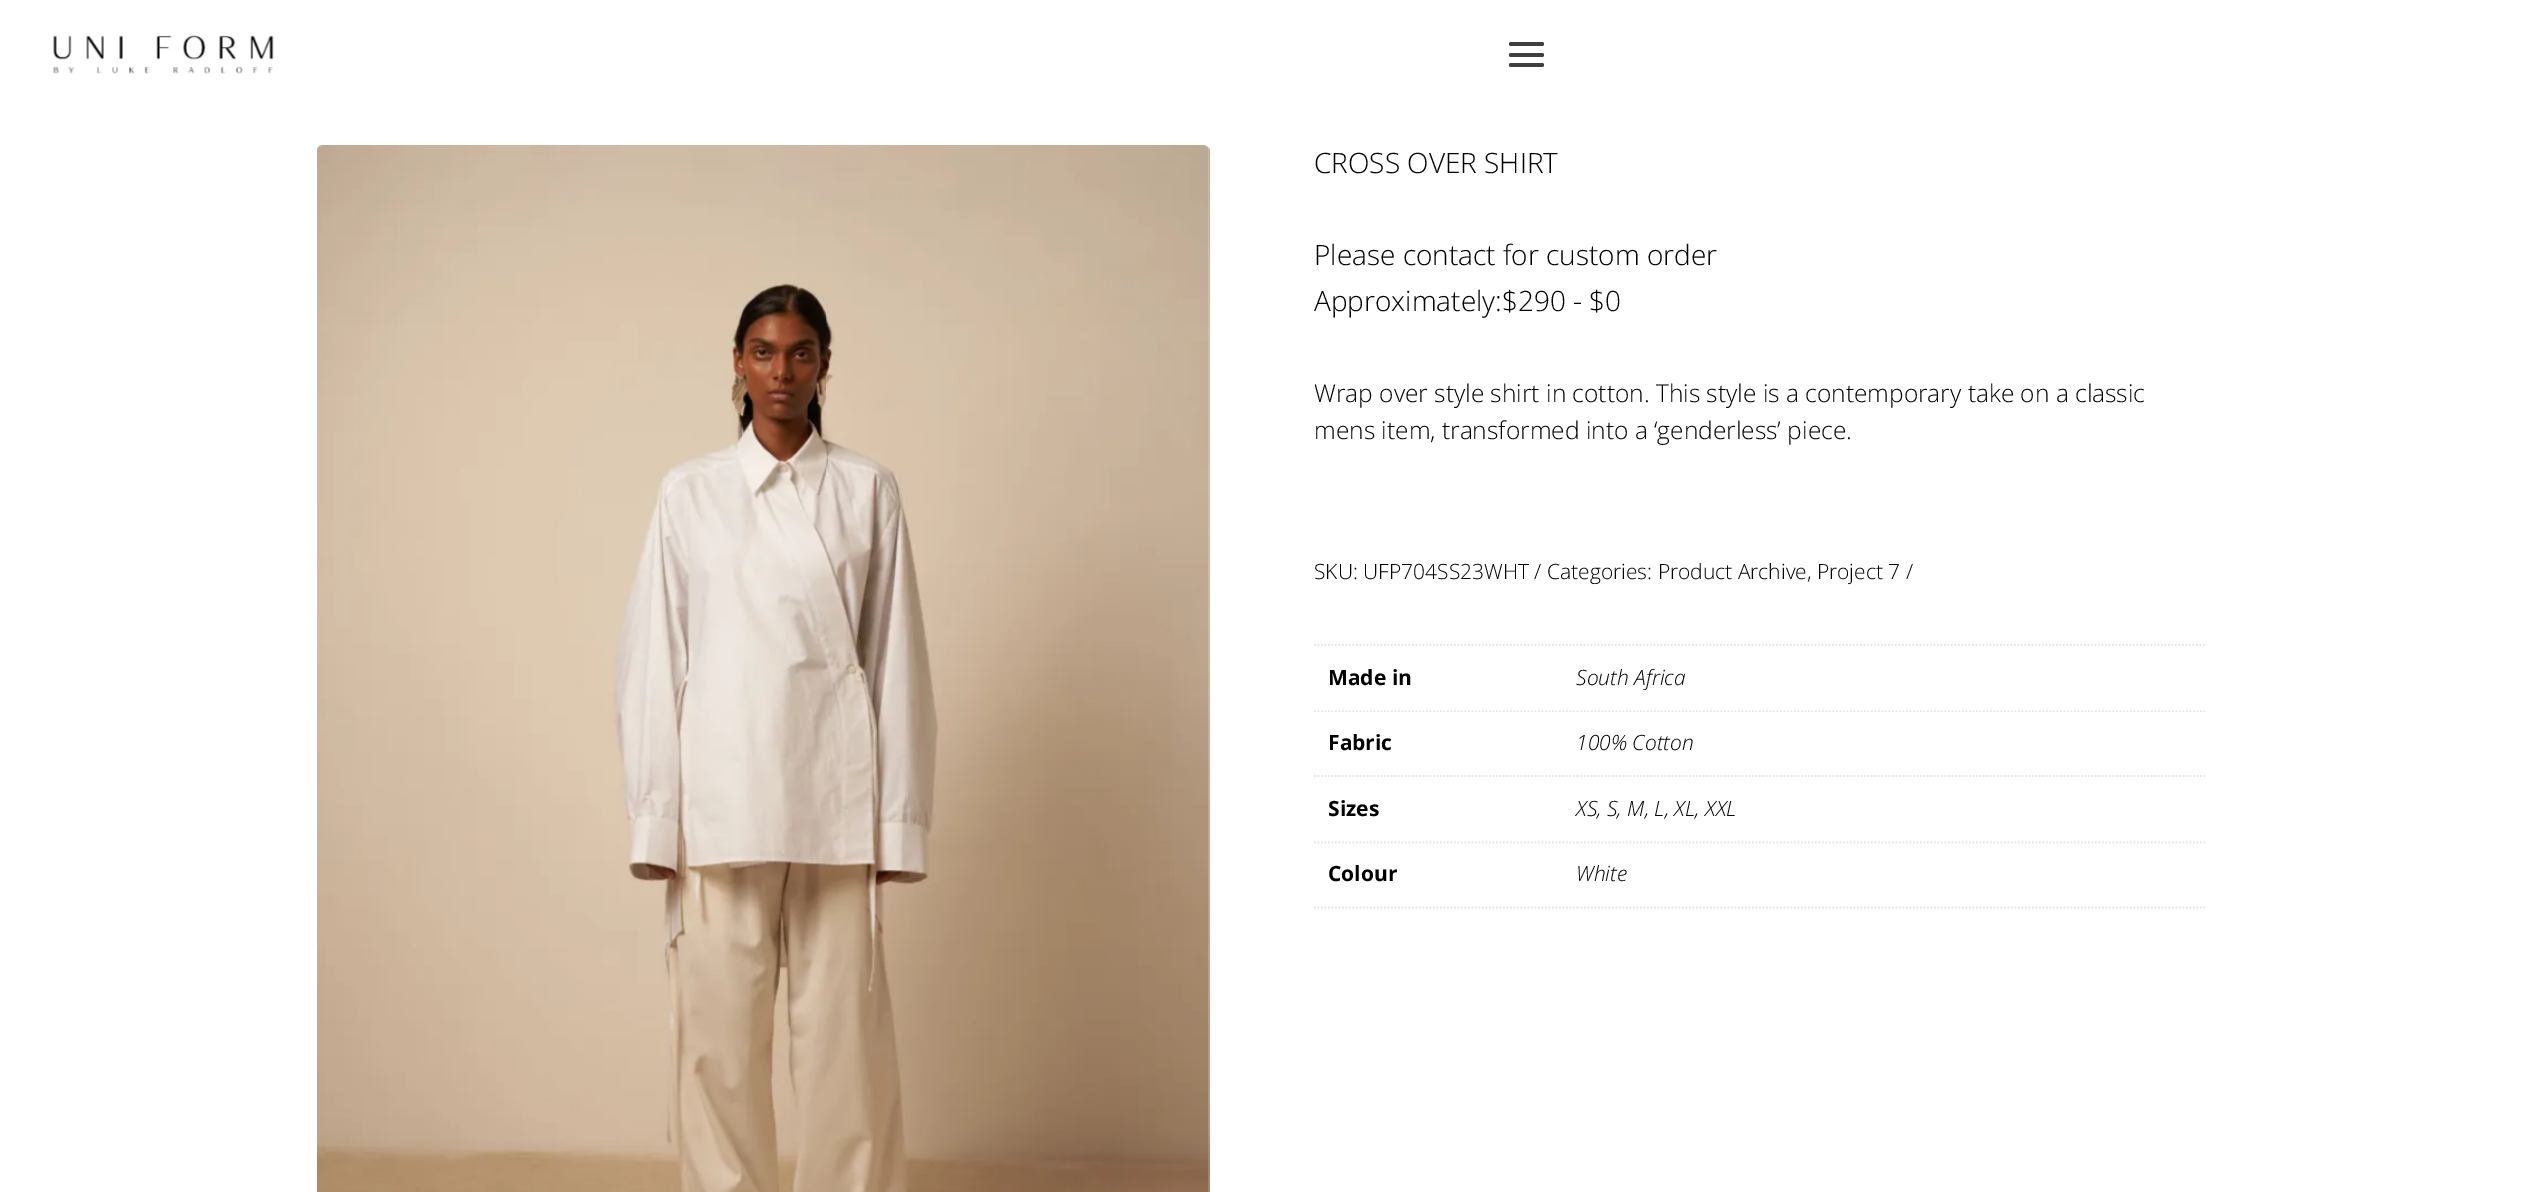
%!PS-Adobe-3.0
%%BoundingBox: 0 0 2522 1192
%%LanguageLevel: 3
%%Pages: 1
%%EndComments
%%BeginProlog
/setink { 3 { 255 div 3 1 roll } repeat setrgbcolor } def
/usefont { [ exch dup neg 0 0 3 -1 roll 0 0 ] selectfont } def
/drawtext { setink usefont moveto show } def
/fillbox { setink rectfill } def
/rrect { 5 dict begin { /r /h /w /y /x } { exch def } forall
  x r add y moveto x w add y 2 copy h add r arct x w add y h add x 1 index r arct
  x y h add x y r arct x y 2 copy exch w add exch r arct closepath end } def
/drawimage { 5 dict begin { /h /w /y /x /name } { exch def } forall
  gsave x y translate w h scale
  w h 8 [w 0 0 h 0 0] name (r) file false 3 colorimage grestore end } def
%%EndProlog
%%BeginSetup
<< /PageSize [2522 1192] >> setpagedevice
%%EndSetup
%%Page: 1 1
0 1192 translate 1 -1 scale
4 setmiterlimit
0 0 2522 1192 255 255 255 fillbox
(assets/img1.rgb) 52 35 222 39 drawimage
64 64 64 setink
1509 42 35 4 2 rrect fill
1509 53 35 4 2 rrect fill
1509 63 35 4 2 rrect fill
(assets/img3.rgb) 1209 147 1 1045 drawimage
(assets/img2.rgb) 317 145 893 1047 drawimage
(CROSS OVER SHIRT) 1314 173 /OpenSans-Light 28 0 0 0 drawtext
(Please contact for custom order) 1314 265 /OpenSans-Light 28 0 0 0 drawtext
(Approximately:$290 - $0) 1314 311 /OpenSans-Light 28 0 0 0 drawtext
(Wrap over style shirt in cotton. This style is a contemporary take on a classic) 1314 402 /OpenSans-Light 24.5 0 0 0 drawtext
(mens item, transformed into a ‘genderless’ piece.) 1314 439 /OpenSans-Light 24.5 0 0 0 drawtext
(SKU: UFP704SS23WHT / Categories: Product Archive, Project 7 /) 1314 579 /OpenSans-Light 21 0 0 0 drawtext
230 230 230 setink
1.8 setlinewidth
[1.75 1.75] 0 setdash
1314 645 moveto 2207 645 lineto stroke
1314 711.5 moveto 1577 711.5 lineto stroke
(Made in) 1328 685 /OpenSans-Bold 21 0 0 0 drawtext
230 230 230 setink
1577 711.5 moveto 2207 711.5 lineto stroke
(South Africa) 1576 685 /OpenSans-LightItalic 21 0 0 0 drawtext
1314 712 891 1 255 255 255 fillbox
230 230 230 setink
1314 776 moveto 1577 776 lineto stroke
(Fabric) 1328 750 /OpenSans-Bold 21 0 0 0 drawtext
230 230 230 setink
1577 776 moveto 2207 776 lineto stroke
(100% Cotton) 1576 750 /OpenSans-LightItalic 21 0 0 0 drawtext
230 230 230 setink
1314 842.5 moveto 1577 842.5 lineto stroke
(Sizes) 1328 816 /OpenSans-Bold 21 0 0 0 drawtext
230 230 230 setink
1577 842.5 moveto 2207 842.5 lineto stroke
(XS, S, M, L, XL, XXL) 1576 816 /OpenSans-LightItalic 21 0 0 0 drawtext
230 230 230 setink
1314 907.5 moveto 1577 907.5 lineto stroke
(Colour) 1328 881 /OpenSans-Bold 21 0 0 0 drawtext
230 230 230 setink
1577 907.5 moveto 2207 907.5 lineto stroke
(White) 1576 881 /OpenSans-LightItalic 21 0 0 0 drawtext
showpage
%%EOF
